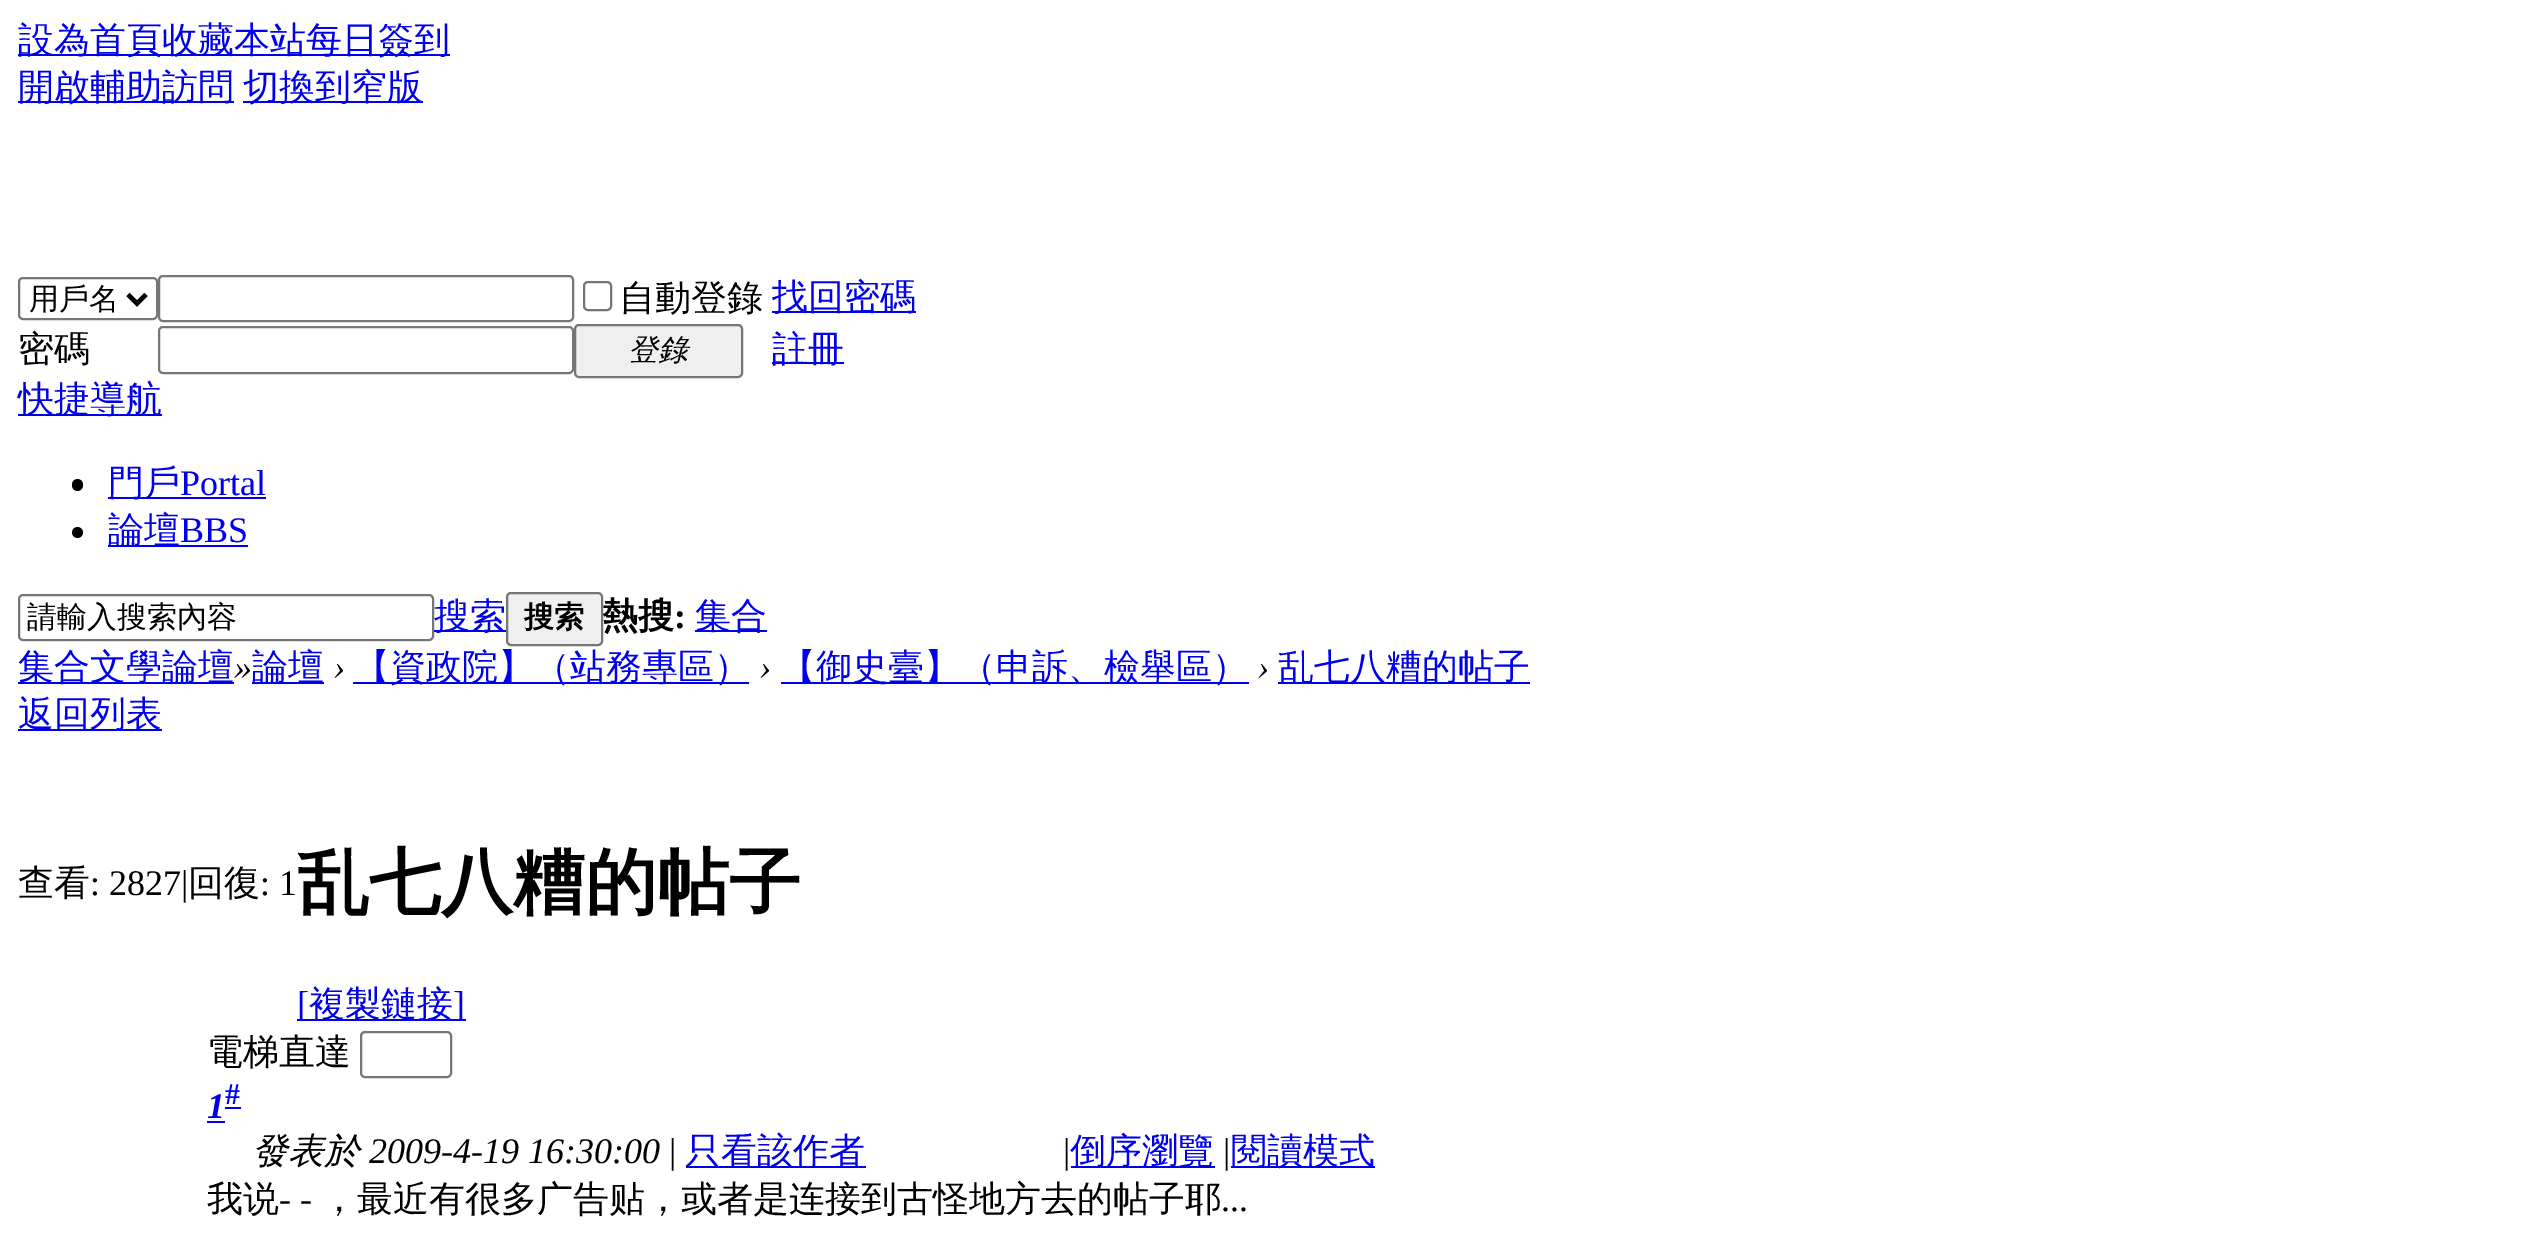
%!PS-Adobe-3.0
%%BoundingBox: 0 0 2543 1235
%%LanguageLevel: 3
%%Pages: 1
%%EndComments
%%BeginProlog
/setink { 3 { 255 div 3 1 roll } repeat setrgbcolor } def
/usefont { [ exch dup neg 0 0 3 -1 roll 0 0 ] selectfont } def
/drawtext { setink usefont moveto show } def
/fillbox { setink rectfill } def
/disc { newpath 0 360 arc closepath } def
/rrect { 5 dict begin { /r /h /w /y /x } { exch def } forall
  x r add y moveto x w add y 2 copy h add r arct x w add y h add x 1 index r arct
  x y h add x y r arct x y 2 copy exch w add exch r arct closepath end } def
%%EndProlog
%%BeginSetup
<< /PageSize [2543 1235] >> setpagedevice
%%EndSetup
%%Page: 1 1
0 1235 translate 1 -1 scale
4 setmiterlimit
0 0 2543 1235 255 255 255 fillbox
18 54 432 2 0 0 238 fillbox
(設為首頁收藏本站每日簽到) 18 52 /WenQuanYiZenHei-Medium 36 0 0 238 drawtext
18 101 216 2 0 0 238 fillbox
(開啟輔助訪問) 18 99 /WenQuanYiZenHei-Medium 36 0 0 238 drawtext
243 101 180 2 0 0 238 fillbox
(切換到窄版) 243 99 /WenQuanYiZenHei-Medium 36 0 0 238 drawtext
118 118 118 setink
2 setlinewidth
19 278 138 41 4 rrect stroke
0 0 0 setink
4.5 setlinewidth
128 294.5 moveto 137 303.5 lineto 146 294.5 lineto stroke
(用戶名) 29 309 /WenQuanYiZenHei-Medium 30 0 0 0 drawtext
118 118 118 setink
2 setlinewidth
159 276 414 45 4 rrect stroke
584 282 27 28 4 rrect stroke
(自動登錄) 619 310 /WenQuanYiZenHei-Medium 36 0 0 0 drawtext
772 311 144 2 0 0 238 fillbox
(找回密碼) 772 309 /WenQuanYiZenHei-Medium 36 0 0 238 drawtext
(密碼) 18 361 /WenQuanYiZenHei-Medium 36 0 0 0 drawtext
118 118 118 setink
159 327 414 46 4 rrect stroke
239 239 239 setink
575 325 167 52 4 rrect gsave fill grestore
118 118 118 setink
stroke
(登錄) 628 360 /WenQuanYiZenHei-MediumItalic 30 0 0 0 drawtext
772 362 72 2 0 0 238 fillbox
(註冊) 772 361 /WenQuanYiZenHei-Medium 36 0 0 238 drawtext
18 414 144 2 0 0 238 fillbox
(快捷導航) 18 411 /WenQuanYiZenHei-Medium 36 0 0 238 drawtext
0 0 0 setink
72 479 11 12 5.5 rrect fill
108 497 158 2 0 0 238 fillbox
(門戶) 108 495 /WenQuanYiZenHei-Medium 36 0 0 238 drawtext
(Portal) 180 495 /LiberationSerif-Regular 36 0 0 238 drawtext
0 0 0 setink
77.5 532.5 5.5 disc fill
108 545 140 2 0 0 238 fillbox
(論壇) 108 542 /WenQuanYiZenHei-Medium 36 0 0 238 drawtext
(BBS) 180 542 /LiberationSerif-Regular 36 0 0 238 drawtext
118 118 118 setink
19 595 414 45 4 rrect stroke
(請輸入搜索內容) 27 627 /WenQuanYiZenHei-Medium 30 0 0 0 drawtext
434 630 72 2 0 0 238 fillbox
(搜索) 434 628 /WenQuanYiZenHei-Medium 36 0 0 238 drawtext
239 239 239 setink
507 593 95 52 4 rrect gsave fill grestore
118 118 118 setink
stroke
(搜索) 524 627 /WenQuanYiZenHei-Bold 30 0 0 0 drawtext
(熱搜) 602 628 /WenQuanYiZenHei-Bold 36 0 0 0 drawtext
(:) 674 628 /LiberationSerif-Bold 36 0 0 0 drawtext
695 630 72 2 0 0 238 fillbox
(集合) 695 628 /WenQuanYiZenHei-Medium 36 0 0 238 drawtext
18 682 216 2 0 0 238 fillbox
(集合文學論壇) 18 679 /WenQuanYiZenHei-Medium 36 0 0 238 drawtext
(») 234 679 /LiberationSerif-Italic 36 0 0 0 drawtext
252 682 72 2 0 0 238 fillbox
(論壇) 252 679 /WenQuanYiZenHei-Medium 36 0 0 238 drawtext
(›) 333 679 /LiberationSerif-Italic 36 0 0 0 drawtext
353 682 396 2 0 0 238 fillbox
(【資政院】（站務專區）) 354 679 /WenQuanYiZenHei-Medium 36 0 0 238 drawtext
(›) 759 679 /LiberationSerif-Italic 36 0 0 0 drawtext
781 682 468 2 0 0 238 fillbox
(【御史臺】（申訴、檢舉區）) 780 679 /WenQuanYiZenHei-Medium 36 0 0 238 drawtext
(›) 1257 679 /LiberationSerif-Italic 36 0 0 0 drawtext
1278 682 252 2 0 0 238 fillbox
(乱七八糟的帖子) 1278 679 /WenQuanYiZenHei-Medium 36 0 0 238 drawtext
18 729 144 2 0 0 238 fillbox
(返回列表) 18 726 /WenQuanYiZenHei-Medium 36 0 0 238 drawtext
(查看) 18 895 /WenQuanYiZenHei-Medium 36 0 0 0 drawtext
(: 2827|) 90 895 /LiberationSerif-Regular 36 0 0 0 drawtext
(回復) 188 895 /WenQuanYiZenHei-Medium 36 0 0 0 drawtext
(: 1) 260 895 /LiberationSerif-Regular 36 0 0 0 drawtext
(乱七八糟的帖子) 297 907 /WenQuanYiZenHei-Bold 72 0 0 0 drawtext
297 1019 169 2 0 0 238 fillbox
([) 297 1016 /LiberationSerif-Regular 36 0 0 238 drawtext
(複製鏈接) 309 1016 /WenQuanYiZenHei-Medium 36 0 0 238 drawtext
(]) 453 1016 /LiberationSerif-Regular 36 0 0 238 drawtext
(電梯直達) 207 1064 /WenQuanYiZenHei-Medium 36 0 0 0 drawtext
118 118 118 setink
361 1032 90 45 4 rrect stroke
(1) 207 1118 /LiberationSerif-BoldItalic 36 0 0 238 drawtext
207 1121 18 2 0 0 238 fillbox
225 1107 16 2 0 0 238 fillbox
(#) 225 1104 /LiberationSerif-Bold 30 0 0 238 drawtext
(發表於) 252 1163 /WenQuanYiZenHei-MediumItalic 36 0 0 0 drawtext
(2009-4-19 16:30:00) 369 1163 /LiberationSerif-Italic 36 0 0 0 drawtext
(|) 669 1163 /LiberationSerif-Regular 36 0 0 0 drawtext
686 1166 180 2 0 0 238 fillbox
(只看該作者) 685 1163 /WenQuanYiZenHei-Medium 36 0 0 238 drawtext
(|) 1063 1163 /LiberationSerif-Regular 36 0 0 0 drawtext
1071 1166 144 2 0 0 238 fillbox
(倒序瀏覽) 1070 1163 /WenQuanYiZenHei-Medium 36 0 0 238 drawtext
(|) 1223 1163 /LiberationSerif-Regular 36 0 0 0 drawtext
1231 1166 144 2 0 0 238 fillbox
(閱讀模式) 1231 1163 /WenQuanYiZenHei-Medium 36 0 0 238 drawtext
(我说) 207 1211 /WenQuanYiZenHei-Medium 36 0 0 0 drawtext
(- -) 279 1211 /LiberationSerif-Regular 36 0 0 0 drawtext
(，最近有很多广告贴，或者是连接到古怪地方去的帖子耶) 321 1211 /WenQuanYiZenHei-Medium 36 0 0 0 drawtext
(...) 1221 1211 /LiberationSerif-Regular 36 0 0 0 drawtext
showpage
%%EOF
